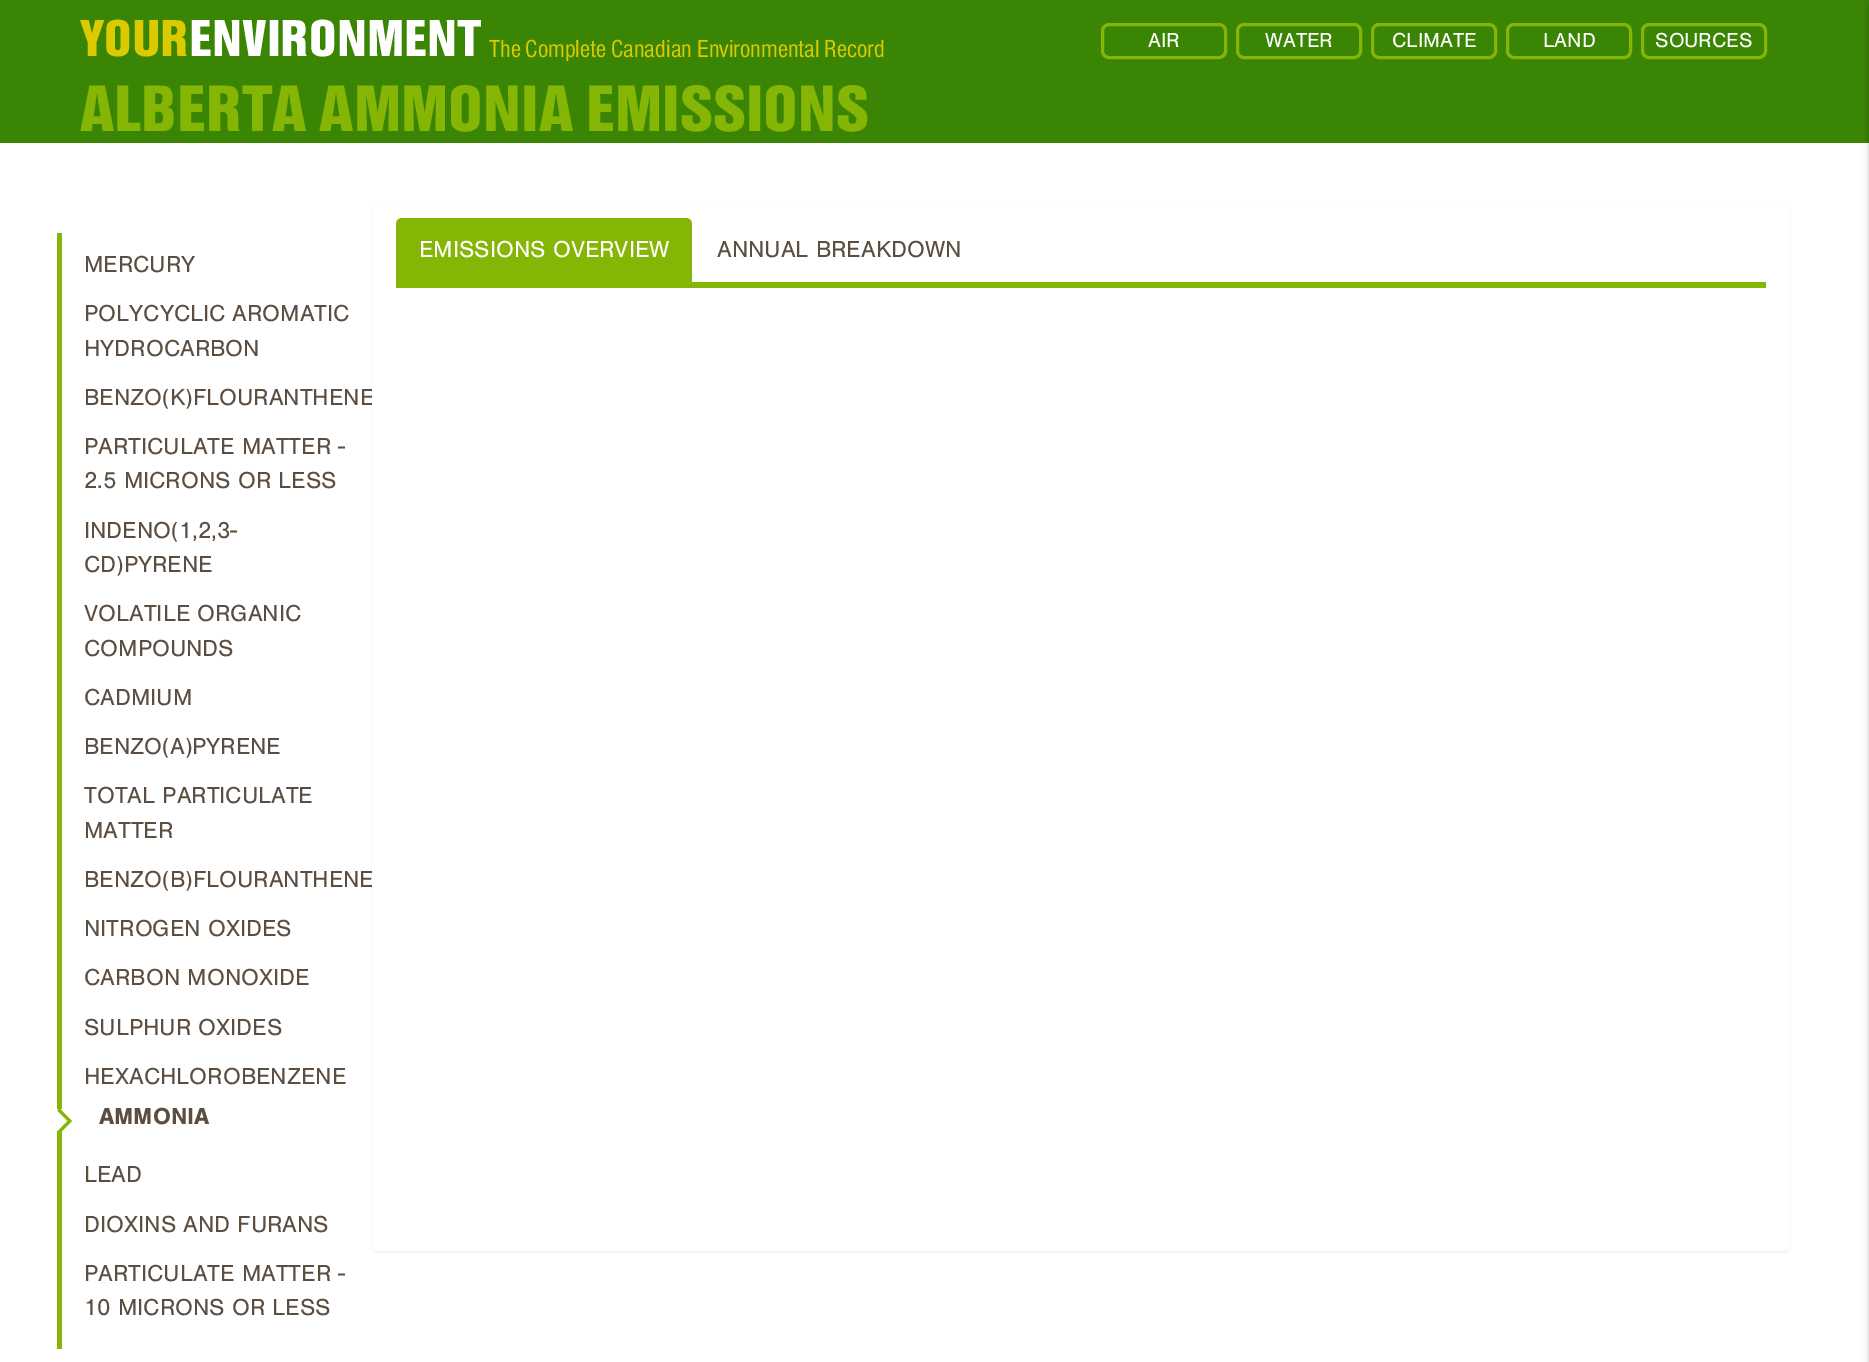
%!PS-Adobe-3.0
%%BoundingBox: 0 0 1869 1362
%%LanguageLevel: 3
%%Pages: 1
%%EndComments
%%BeginProlog
/setink { 3 { 255 div 3 1 roll } repeat setrgbcolor } def
/usefont { [ exch dup neg 0 0 3 -1 roll 0 0 ] selectfont } def
/drawtext { setink usefont moveto show } def
/fillbox { setink rectfill } def
/setalpha { dup .setfillconstantalpha .setstrokeconstantalpha } def
/rrect { 5 dict begin { /r /h /w /y /x } { exch def } forall
  x r add y moveto x w add y 2 copy h add r arct x w add y h add x 1 index r arct
  x y h add x y r arct x y 2 copy exch w add exch r arct closepath end } def
/softshadow { 12 dict begin { /a /b /q /h /w /y /x } { exch def } forall gsave /was 0 def
  9 -2 -9 { dup b mul 4 div /e exch def 1 sub .425 mul 2.718 exch exp 1 add a .99 .min exch div /now exch def
    1 1 now sub 1 was sub div sub setalpha /was now def
    w h .min e 2 mul add 0 gt { x e sub y e sub w e 2 mul add h e 2 mul add
      q e add b .6 mul add w h .min 2 div e add .min 0 .max rrect fill } if } for grestore end } def
/drawimage { 5 dict begin { /h /w /y /x /name } { exch def } forall
  gsave x y translate w h scale
  w h 8 [w 0 0 h 0 0] name (r) file false 3 colorimage grestore end } def
%%EndProlog
%%BeginSetup
<< /PageSize [1869 1362] /PageUsesTransparency true >> setpagedevice
%%EndSetup
%%Page: 1 1
0 .pushpdf14devicefilter
0 1362 translate 1 -1 scale
4 setmiterlimit
0 0 1869 1362 255 255 255 fillbox
0 0 1869 143 58 133 4 fillbox
(YOUR) 80 56 /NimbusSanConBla-Regular 54 220 202 0 drawtext
(ENVIRONMENT) 189 56 /NimbusSanConBla-Regular 54 255 255 255 drawtext
(The Complete Canadian Environmental Record) 489 57 /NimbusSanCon-Regular 25.5 220 202 0 drawtext
133 182 5 setink
3 setlinewidth
1102.5 24.5 123 33 6.5 rrect stroke
(AIR) 1148 47 /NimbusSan-Regular 21 255 255 255 drawtext
133 182 5 setink
1237.5 24.5 123 33 6.5 rrect stroke
(WATER) 1265 47 /NimbusSan-Regular 21 255 255 255 drawtext
133 182 5 setink
1372.5 24.5 123 33 6.5 rrect stroke
(CLIMATE) 1392 47 /NimbusSan-Regular 21 255 255 255 drawtext
133 182 5 setink
1507.5 24.5 123 33 6.5 rrect stroke
(LAND) 1543 47 /NimbusSan-Regular 21 255 255 255 drawtext
133 182 5 setink
1642.5 24.5 123 33 6.5 rrect stroke
(SOURCES) 1655 47 /NimbusSan-Regular 21 255 255 255 drawtext
0 0 0 setink
1869 2 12 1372 0 4 0.12 softshadow
1869 3 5 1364 0 1.5 0.14 softshadow
(ALBERTA AMMONIA EMISSIONS) 80 131 /NimbusSanConBla-Regular 68.1 133 182 5 drawtext
0 0 0 setink
372 204 1418 1049 6 1 0.05 softshadow
(BENZO\(K\)FLOURANTHENE) 84 405 /NimbusSan-Regular 24 92 77 65 drawtext
(BENZO\(B\)FLOURANTHENE) 84 887 /NimbusSan-Regular 24 92 77 65 drawtext
255 255 255 setink
372 203 1418 1048 6 rrect fill
396 282 1370 6 133 182 5 fillbox
402 218 moveto 686 218 lineto 689.5 218 692 220.5 692 224 curveto 692 282 lineto 396 282 lineto 396 224 lineto 396 220.5 398.5 218 402 218 curveto closepath fill
(EMISSIONS OVERVIEW) 419 257 /NimbusSan-Regular 24 255 255 255 drawtext
(ANNUAL BREAKDOWN) 717 257 /NimbusSan-Regular 24 92 77 65 drawtext
57 233 5 1116 133 182 5 fillbox
(MERCURY) 84 272 /NimbusSan-Regular 24 92 77 65 drawtext
(POLYCYCLIC AROMATIC) 84 321 /NimbusSan-Regular 24 92 77 65 drawtext
(HYDROCARBON) 84 356 /NimbusSan-Regular 24 92 77 65 drawtext
(PARTICULATE MATTER -) 84 454 /NimbusSan-Regular 24 92 77 65 drawtext
(2.5 MICRONS OR LESS) 84 488 /NimbusSan-Regular 24 92 77 65 drawtext
(INDENO\(1,2,3-) 84 538 /NimbusSan-Regular 24 92 77 65 drawtext
(CD\)PYRENE) 84 572 /NimbusSan-Regular 24 92 77 65 drawtext
(VOLATILE ORGANIC) 84 621 /NimbusSan-Regular 24 92 77 65 drawtext
(COMPOUNDS) 84 656 /NimbusSan-Regular 24 92 77 65 drawtext
(CADMIUM) 84 705 /NimbusSan-Regular 24 92 77 65 drawtext
(BENZO\(A\)PYRENE) 84 754 /NimbusSan-Regular 24 92 77 65 drawtext
(TOTAL PARTICULATE) 84 803 /NimbusSan-Regular 24 92 77 65 drawtext
(MATTER) 84 838 /NimbusSan-Regular 24 92 77 65 drawtext
(NITROGEN OXIDES) 84 936 /NimbusSan-Regular 24 92 77 65 drawtext
(CARBON MONOXIDE) 84 985 /NimbusSan-Regular 24 92 77 65 drawtext
(SULPHUR OXIDES) 84 1035 /NimbusSan-Regular 24 92 77 65 drawtext
(HEXACHLOROBENZENE) 84 1084 /NimbusSan-Regular 24 92 77 65 drawtext
57 1109 5 22 255 255 255 fillbox
(assets/img1.rgb) 57 1109 15 23 drawimage
(AMMONIA) 99 1124 /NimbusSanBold-Bold 24 92 77 65 drawtext
(LEAD) 84 1182 /NimbusSan-Regular 24 92 77 65 drawtext
(DIOXINS AND FURANS) 84 1232 /NimbusSan-Regular 24 92 77 65 drawtext
(PARTICULATE MATTER -) 84 1281 /NimbusSan-Regular 24 92 77 65 drawtext
(10 MICRONS OR LESS) 84 1315 /NimbusSan-Regular 24 92 77 65 drawtext
.poppdf14devicefilter showpage
%%EOF
